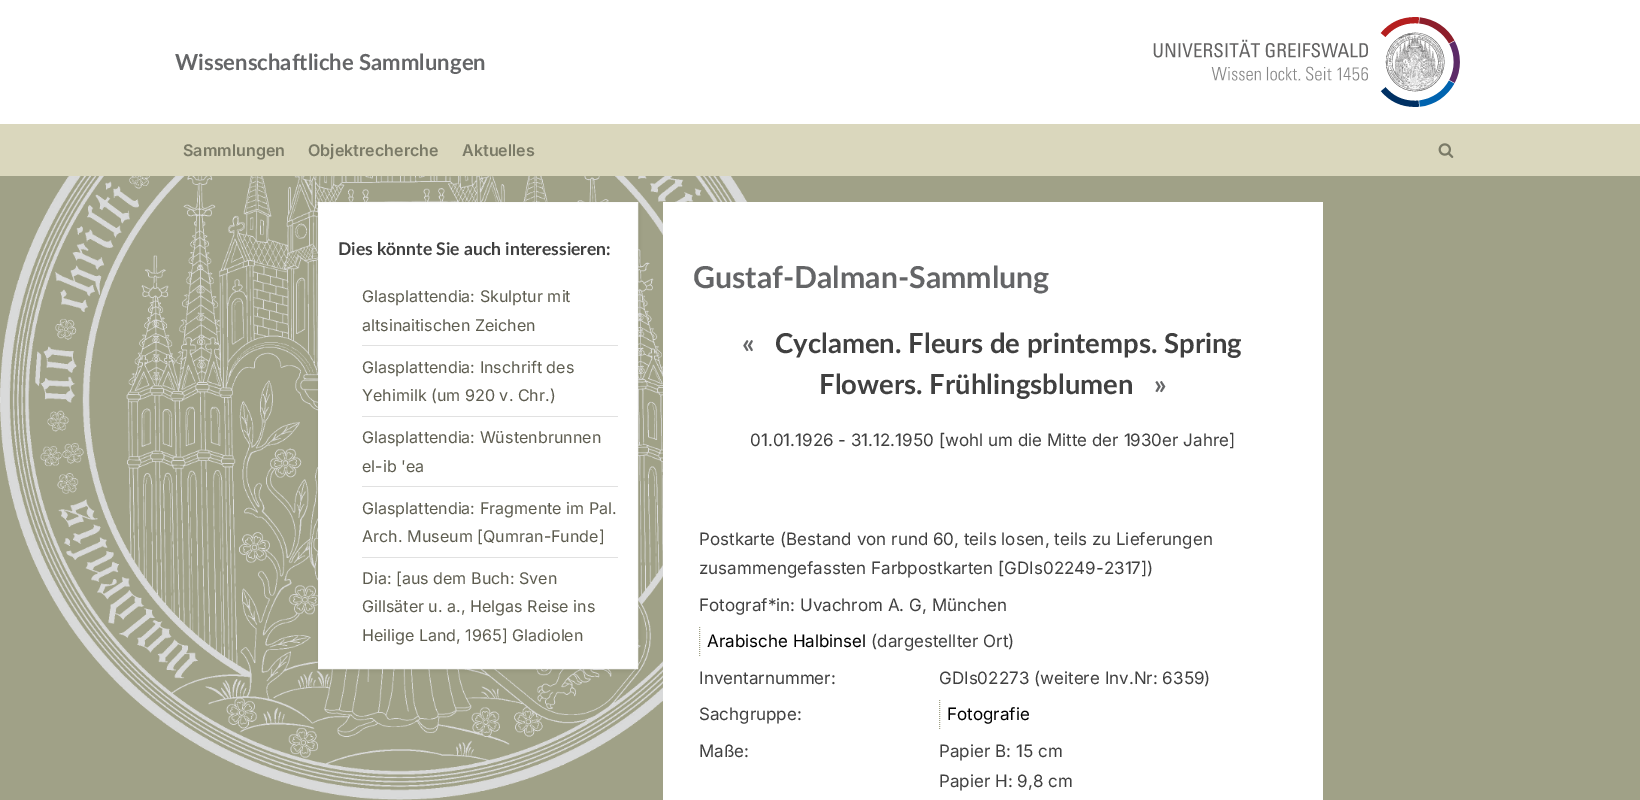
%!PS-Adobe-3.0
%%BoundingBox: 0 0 1640 800
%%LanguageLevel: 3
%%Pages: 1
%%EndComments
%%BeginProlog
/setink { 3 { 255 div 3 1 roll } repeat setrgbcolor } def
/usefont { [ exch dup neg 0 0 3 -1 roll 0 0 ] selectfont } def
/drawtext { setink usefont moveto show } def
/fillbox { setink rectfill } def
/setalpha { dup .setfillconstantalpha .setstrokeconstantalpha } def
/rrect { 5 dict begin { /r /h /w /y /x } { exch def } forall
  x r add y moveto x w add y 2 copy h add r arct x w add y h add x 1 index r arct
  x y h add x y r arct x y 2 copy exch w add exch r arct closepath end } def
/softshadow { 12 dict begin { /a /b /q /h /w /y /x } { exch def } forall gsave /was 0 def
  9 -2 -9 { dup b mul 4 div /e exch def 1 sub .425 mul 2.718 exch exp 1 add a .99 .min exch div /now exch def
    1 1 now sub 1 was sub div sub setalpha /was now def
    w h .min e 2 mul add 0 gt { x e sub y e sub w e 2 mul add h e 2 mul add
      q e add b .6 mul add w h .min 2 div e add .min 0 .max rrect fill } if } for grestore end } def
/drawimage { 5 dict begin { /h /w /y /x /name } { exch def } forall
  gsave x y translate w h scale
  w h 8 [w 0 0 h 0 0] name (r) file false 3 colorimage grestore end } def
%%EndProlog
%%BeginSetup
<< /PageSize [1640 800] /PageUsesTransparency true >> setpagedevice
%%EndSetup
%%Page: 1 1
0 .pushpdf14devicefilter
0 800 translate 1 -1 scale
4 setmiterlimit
0 0 1640 800 160 161 135 fillbox
(assets/img1.rgb) 0 176 800 624 drawimage
0 0 1640 124 255 255 255 fillbox
(Wissenschaftliche Sammlungen) 175 70 /Lato-Bold 22.1 100 101 103 drawtext
(assets/img2.rgb) 1153 17 307 90 drawimage
0 124 1640 52 218 215 189 fillbox
(Sammlungen) 183 156 /Inter-SemiBold 16.1 122 122 103 drawtext
(Objektrecherche) 308 156 /Inter-SemiBold 16.1 122 122 103 drawtext
(Aktuelles) 462 156 /Inter-SemiBold 16.1 122 122 103 drawtext
(assets/img3.rgb) 1438 143 16 15 drawimage
0 0 0 setink
319 204 320 467 0 1.5 0.07 softshadow
255 255 255 setink
318.5 202.5 moveto 637.5 202.5 lineto 637.5 668.5 lineto 318.5 668.5 lineto closepath gsave fill grestore
250 250 250 setink
stroke
(Dies könnte Sie auch interessieren:) 338 255 /Lato-Bold 17.5 64 64 64 drawtext
362 345 256 1 225 225 225 fillbox
(Glasplattendia: Skulptur mit) 362 302 /Inter-Regular 16.1 93 92 79 drawtext
(altsinaitischen Zeichen) 362 331 /Inter-Regular 16.1 93 92 79 drawtext
362 416 256 1 225 225 225 fillbox
(Glasplattendia: Inschrift des) 362 373 /Inter-Regular 16.1 93 92 79 drawtext
(Yehimilk \(um 920 v. Chr.\)) 362 401 /Inter-Regular 16.1 93 92 79 drawtext
362 486 256 1 225 225 225 fillbox
(Glasplattendia: Wüstenbrunnen) 362 443 /Inter-Regular 16.1 93 92 79 drawtext
(el-ib 'ea) 362 472 /Inter-Regular 16.1 93 92 79 drawtext
362 557 256 1 225 225 225 fillbox
(Glasplattendia: Fragmente im Pal.) 362 514 /Inter-Regular 16.1 93 92 79 drawtext
(Arch. Museum [Qumran-Funde]) 362 542 /Inter-Regular 16.1 93 92 79 drawtext
(Dia: [aus dem Buch: Sven) 362 584 /Inter-Regular 16.1 93 92 79 drawtext
(Gillsäter u. a., Helgas Reise ins) 362 612 /Inter-Regular 16.1 93 92 79 drawtext
(Heilige Land, 1965] Gladiolen) 362 641 /Inter-Regular 16.1 93 92 79 drawtext
663 202 660 598 255 255 255 fillbox
(Gustaf-Dalman-Sammlung) 693 288 /Lato-Bold 30.25 100 101 103 drawtext
(«) 742 353 /Lato-Bold 27.5 100 101 103 drawtext
(Cyclamen. Fleurs de printemps. Spring) 775 353 /Lato-Bold 27.5 64 64 64 drawtext
(Flowers. Frühlingsblumen) 819 394 /Lato-Bold 27.5 64 64 64 drawtext
(») 1154 394 /Lato-Bold 27.5 100 101 103 drawtext
(01.01.1926 - 31.12.1950 [wohl um die Mitte der 1930er Jahre]) 750 446 /Inter-Regular 17 64 64 64 drawtext
(Postkarte \(Bestand von rund 60, teils losen, teils zu Lieferungen) 699 545 /Inter-Regular 17 64 64 64 drawtext
(zusammengefassten Farbpostkarten [GDIs02249-2317]\)) 699 574 /Inter-Regular 17 64 64 64 drawtext
(Fotograf*in: Uvachrom A. G, München) 699 611 /Inter-Regular 17 64 64 64 drawtext
160 161 135 setink
[1 1] 0 setdash
699.5 627 moveto 699.5 657 lineto stroke
(Arabische Halbinsel) 707 647 /Inter-Regular 17 0 0 0 drawtext
(\(dargestellter Ort\)) 871 647 /Inter-Regular 17 64 64 64 drawtext
(Inventarnummer:) 699 684 /Inter-Regular 17 64 64 64 drawtext
(GDIs02273 \(weitere Inv.Nr: 6359\)) 939 684 /Inter-Regular 17 64 64 64 drawtext
(Sachgruppe:) 699 720 /Inter-Regular 17 64 64 64 drawtext
160 161 135 setink
939.5 700 moveto 939.5 730 lineto stroke
(Fotografie) 947 720 /Inter-Regular 17 0 0 0 drawtext
(Maße:) 699 757 /Inter-Regular 17 64 64 64 drawtext
(Papier B: 15 cm) 939 757 /Inter-Regular 17 64 64 64 drawtext
(Papier H: 9,8 cm) 939 787 /Inter-Regular 17 64 64 64 drawtext
.poppdf14devicefilter showpage
%%EOF
